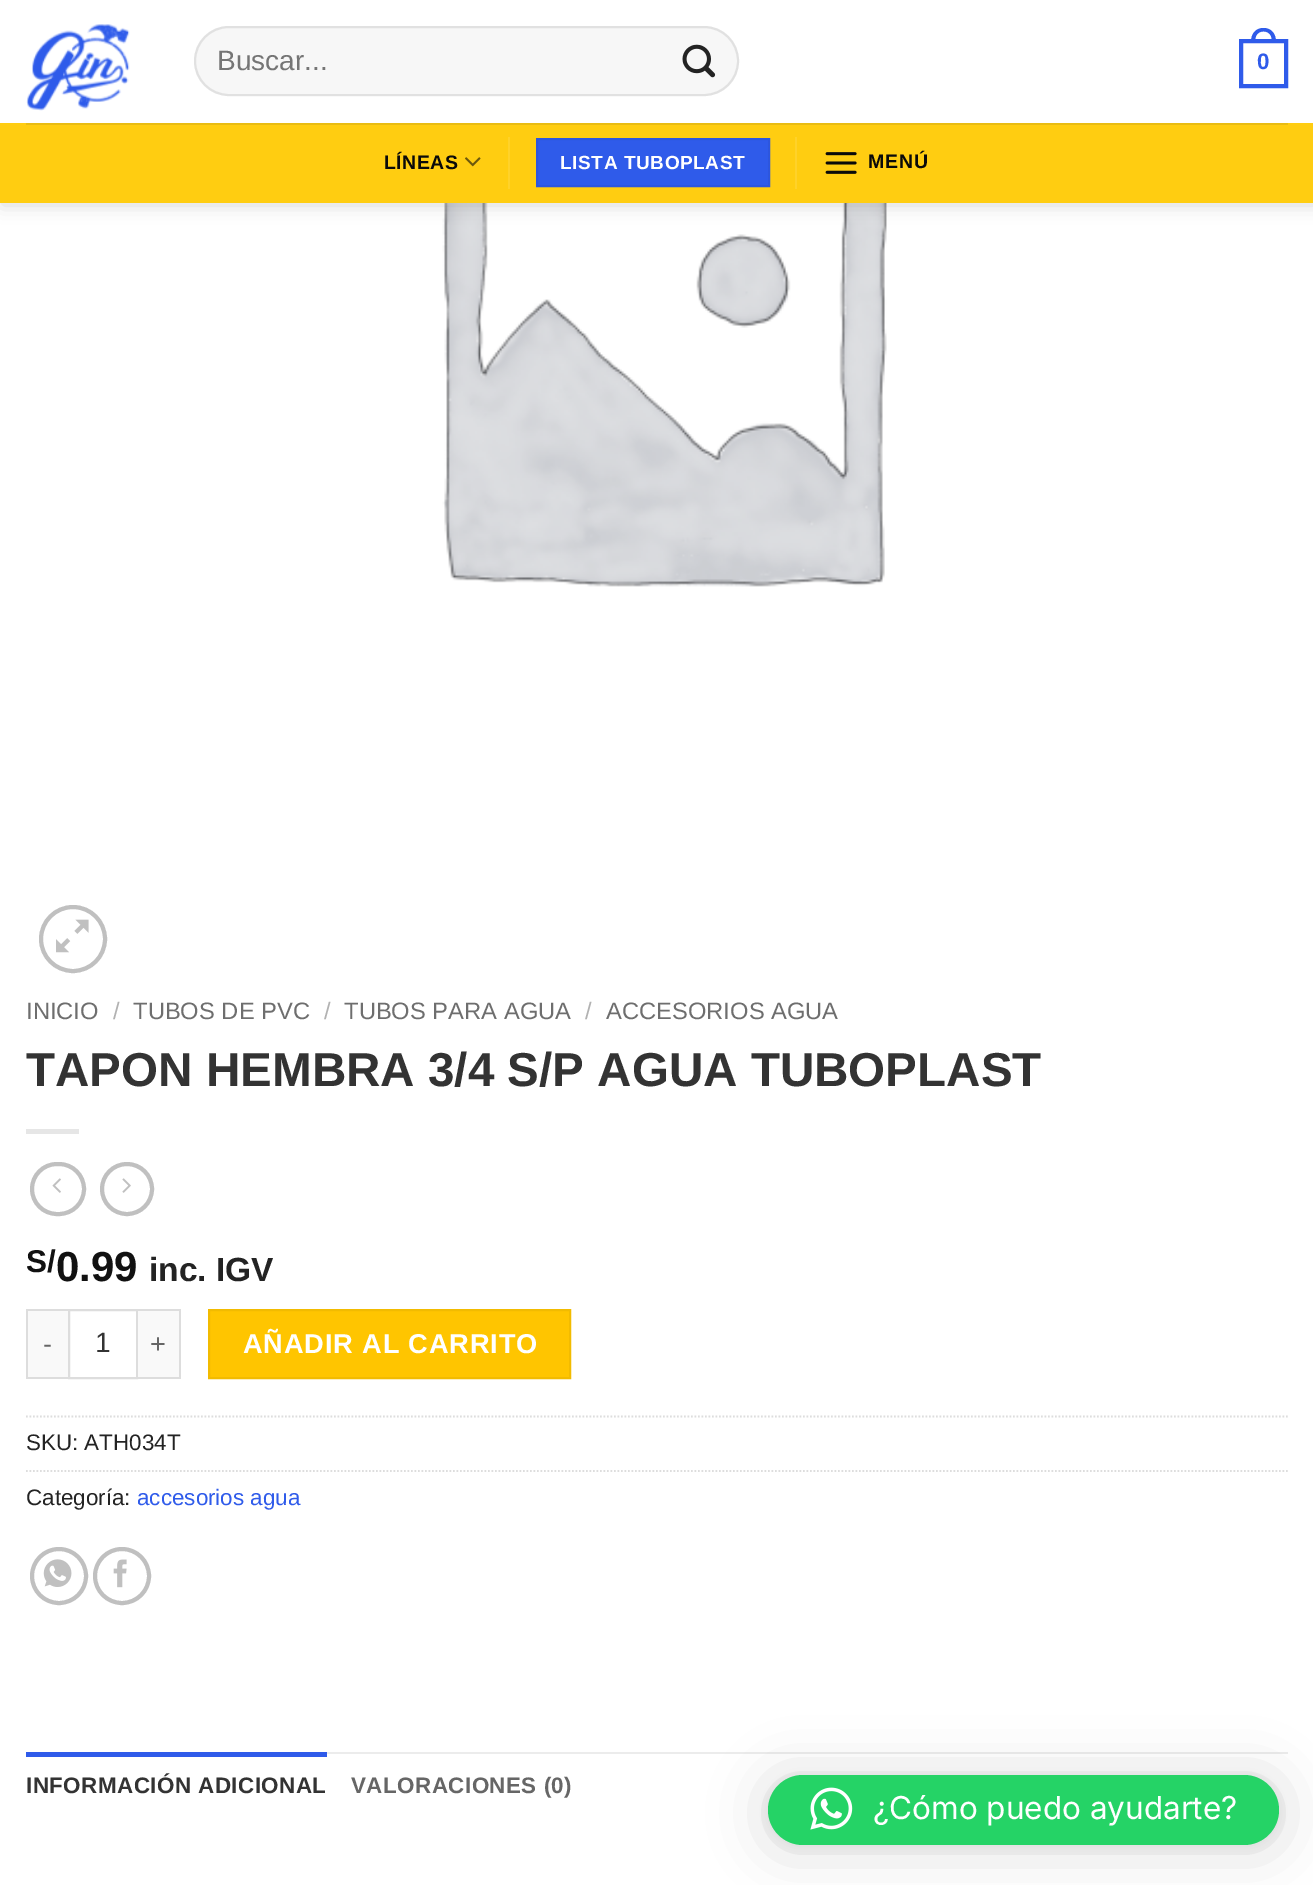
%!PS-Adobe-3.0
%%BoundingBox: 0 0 1313 1885
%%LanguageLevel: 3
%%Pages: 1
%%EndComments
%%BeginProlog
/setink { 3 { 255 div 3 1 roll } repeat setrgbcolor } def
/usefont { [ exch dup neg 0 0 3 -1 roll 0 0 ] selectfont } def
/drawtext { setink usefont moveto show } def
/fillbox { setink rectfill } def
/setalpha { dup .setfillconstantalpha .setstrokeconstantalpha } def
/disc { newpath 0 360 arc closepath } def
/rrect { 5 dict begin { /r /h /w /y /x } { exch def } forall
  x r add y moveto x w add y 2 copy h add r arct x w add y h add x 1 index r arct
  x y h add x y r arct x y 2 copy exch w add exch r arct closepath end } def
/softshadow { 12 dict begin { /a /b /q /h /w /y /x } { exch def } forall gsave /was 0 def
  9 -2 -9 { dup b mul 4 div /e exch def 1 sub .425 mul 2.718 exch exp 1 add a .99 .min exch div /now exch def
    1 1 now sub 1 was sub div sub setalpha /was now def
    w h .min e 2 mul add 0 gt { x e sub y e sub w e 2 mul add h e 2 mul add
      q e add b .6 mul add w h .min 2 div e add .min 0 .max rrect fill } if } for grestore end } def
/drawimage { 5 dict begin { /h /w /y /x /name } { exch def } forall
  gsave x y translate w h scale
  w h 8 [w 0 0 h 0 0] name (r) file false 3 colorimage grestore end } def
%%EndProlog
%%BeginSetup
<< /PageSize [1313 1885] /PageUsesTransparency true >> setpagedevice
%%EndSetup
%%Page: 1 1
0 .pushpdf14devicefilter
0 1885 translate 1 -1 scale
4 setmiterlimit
0 0 1313 1885 255 255 255 fillbox
(assets/img5.rgb) 442 203 445 384 drawimage
0 0 0 setink
2 2 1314 203 0 9 0.15 softshadow
0 0 1313 123 255 255 255 fillbox
(assets/img1.rgb) 26 24 104 87 drawimage
247 247 247 setink
194 26 545 70 35 rrect fill
0.09 setalpha
0 0 0 setink
2 setlinewidth
195 27 543 68 34 rrect stroke
1 setalpha
(Buscar...) 217 70 /LiberationSans-Regular 28 117 117 117 drawtext
(assets/img2.rgb) 682 44 34 34 drawimage
47 91 234 setink
4 setlinewidth
1241 41 45 45 rectstroke
1263.5 28 moveto 1272 28 1276 34.5 1276 42 curveto 1251 42 lineto 1251 34.5 1255 28 1263.5 28 curveto closepath 1263.5 31.5 moveto 1270 31.5 1272 36.5 1272 42 curveto 1255 42 lineto 1255 36.5 1257 31.5 1263.5 31.5 curveto closepath eofill
(0) 1257 69 /LiberationSans-Bold 22.4 47 91 234 drawtext
0 123 1313 80 255 205 17 fillbox
26 123 1262 2 233 188 19 fillbox
/LiberationSans-Bold 19.5 usefont
10 10 10 setink
384 169 moveto 0.5 0 (LÍNEAS) ashow
(assets/img3.rgb) 465 157 16 10 drawimage
508 137 2 52 255 210 41 fillbox
47 91 234 setink
537 139 moveto 769 139 lineto 769 186 lineto 537 186 lineto closepath gsave fill grestore
45 86 222 setink
2 setlinewidth
stroke
/LiberationSans-Bold 19 usefont
255 255 255 setink
560 169 moveto 0.6 0 (LISTA TUBOPLAST) ashow
795 137 2 52 255 210 41 fillbox
(assets/img4.rgb) 825 152 32 22 drawimage
/LiberationSans-Bold 19.5 usefont
10 10 10 setink
868 168 moveto 1 0 (MENÚ) ashow
192 192 192 setink
4 setlinewidth
73 939 32 disc stroke
(assets/img6.rgb) 56 919 33 34 drawimage
(INICIO) 26 1019 /LiberationSans-Regular 23.75 110 110 110 drawtext
(/) 113 1019 /LiberationSans-Regular 23.75 178 178 178 drawtext
(TUBOS DE PVC) 133 1019 /LiberationSans-Regular 23.75 110 110 110 drawtext
(/) 324 1019 /LiberationSans-Regular 23.75 178 178 178 drawtext
(TUBOS PARA AGUA) 344 1019 /LiberationSans-Regular 23.75 110 110 110 drawtext
(/) 585 1019 /LiberationSans-Regular 23.75 178 178 178 drawtext
(ACCESORIOS AGUA) 606 1019 /LiberationSans-Regular 23.75 110 110 110 drawtext
(TAPON HEMBRA 3/4 S/P AGUA TUBOPLAST) 26 1086 /LiberationSans-Bold 47.6 51 51 51 drawtext
26 1129 53 5 230 230 230 fillbox
192 192 192 setink
32 1164 52 50 25 rrect stroke
(assets/img7.rgb) 52 1178 9 15 drawimage
127 1189 25 disc stroke
(assets/img8.rgb) 122 1178 9 15 drawimage
(S/) 26 1272 /LiberationSans-Bold 31.5 17 17 17 drawtext
(0.99) 56 1281 /LiberationSans-Bold 42 17 17 17 drawtext
(inc. IGV) 149 1281 /LiberationSans-Bold 33.5 35 35 35 drawtext
28 1311 40 66 249 249 249 fillbox
26 1309 42 2 221 221 221 fillbox
26 1377 42 2 221 221 221 fillbox
26 1309 2 70 221 221 221 fillbox
/LiberationSans-Regular 27.25 usefont
102 102 102 setink
43 1353 moveto 0.8 0 (-) ashow
221 221 221 setink
2 setlinewidth
69 1310 68 68 rectstroke
(1) 95 1352 /LiberationSans-Regular 28 51 51 51 drawtext
138 1311 41 66 249 249 249 fillbox
138 1309 42 2 221 221 221 fillbox
179 1309 2 70 221 221 221 fillbox
138 1377 42 2 221 221 221 fillbox
/LiberationSans-Regular 27.25 usefont
102 102 102 setink
150 1353 moveto 0.8 0 (+) ashow
255 197 0 setink
209 1310 moveto 570 1310 lineto 570 1378 lineto 209 1378 lineto closepath gsave fill grestore
242 187 0 setink
stroke
/LiberationSans-Bold 27.25 usefont
255 255 255 setink
243 1353 moveto 0.8 0 (AÑADIR AL CARRITO) ashow
221 221 221 setink
1.8 setlinewidth
[1.75 1.75] 0 setdash
26 1416.5 moveto 1288 1416.5 lineto stroke
(SKU: ATH034T) 26 1450 /LiberationSans-Regular 22.4 35 35 35 drawtext
221 221 221 setink
26 1471 moveto 1288 1471 lineto stroke
(Categoría:) 26 1505 /LiberationSans-Regular 22.4 35 35 35 drawtext
(accesorios agua) 137 1505 /LiberationSans-Regular 22.4 47 91 234 drawtext
192 192 192 setink
4 setlinewidth
[] 0 setdash
59 1576 27 disc stroke
(assets/img9.rgb) 43 1559 29 28 drawimage
122 1576 27 disc stroke
(assets/img10.rgb) 113 1559 14 29 drawimage
327 1752 961 2 236 236 236 fillbox
26 1752 301 5 47 91 234 fillbox
/LiberationSans-Bold 22.4 usefont
51 51 51 setink
26 1793 moveto 0.45 0 (INFORMACIÓN ADICIONAL) ashow
102 102 102 setink
351 1793 moveto 0.45 0 (VALORACIONES \(0\)) ashow
0 0 0 setink
768 1778 511 70 35 28 0.16 softshadow
768 1776 511 70 35 5 0.06 softshadow
37 211 102 setink
768 1775 511 70 35 rrect fill
(assets/img11.rgb) 810 1787 43 43 drawimage
(¿Cómo puedo ayudarte?) 873 1819 /Inter-Regular 31.5 255 255 255 drawtext
.poppdf14devicefilter showpage
%%EOF
